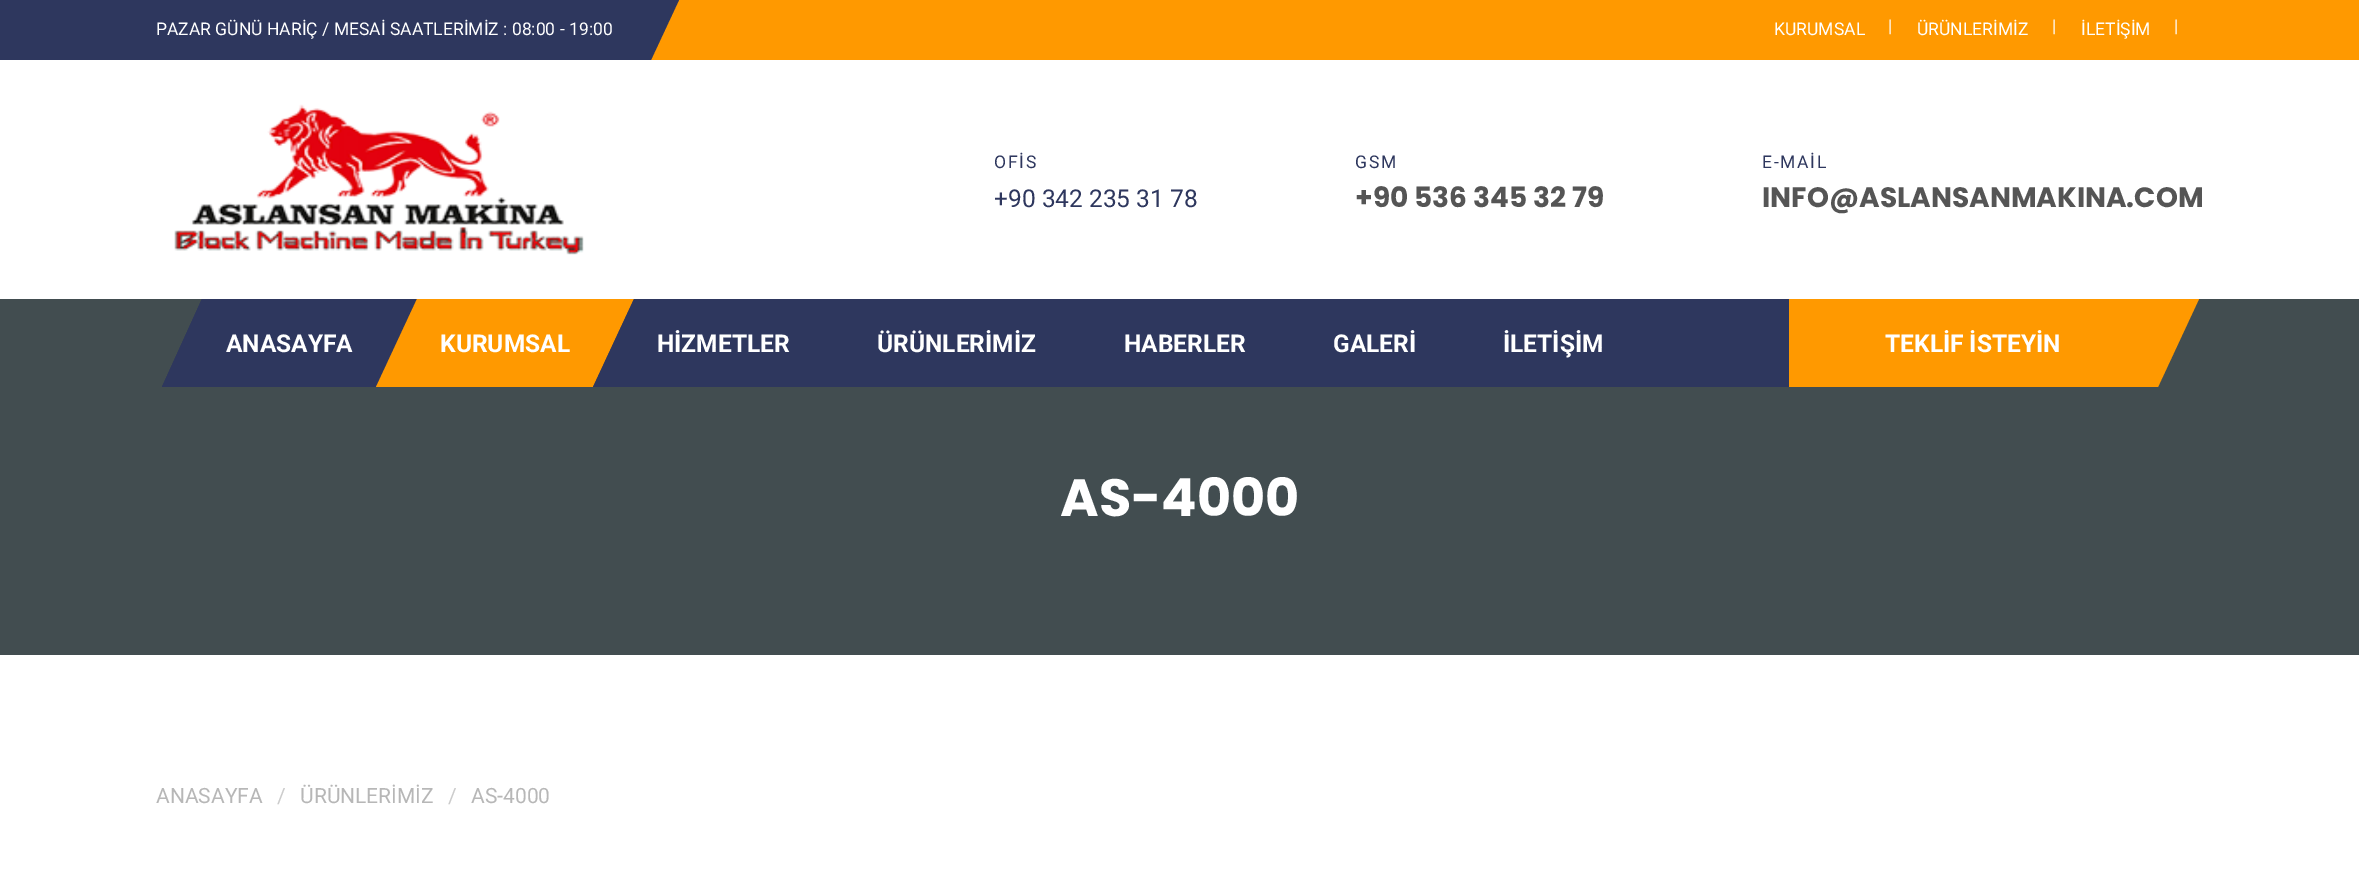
%!PS-Adobe-3.0
%%BoundingBox: 0 0 2359 872
%%LanguageLevel: 3
%%Pages: 1
%%EndComments
%%BeginProlog
/setink { 3 { 255 div 3 1 roll } repeat setrgbcolor } def
/usefont { [ exch dup neg 0 0 3 -1 roll 0 0 ] selectfont } def
/drawtext { setink usefont moveto show } def
/fillbox { setink rectfill } def
/drawimage { 5 dict begin { /h /w /y /x /name } { exch def } forall
  gsave x y translate w h scale
  w h 8 [w 0 0 h 0 0] name (r) file false 3 colorimage grestore end } def
%%EndProlog
%%BeginSetup
<< /PageSize [2359 872] >> setpagedevice
%%EndSetup
%%Page: 1 1
0 872 translate 1 -1 scale
4 setmiterlimit
0 0 2359 872 255 255 255 fillbox
651 0 1708 60 255 153 0 fillbox
46 55 94 setink
-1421 0 moveto 679 0 lineto 651 60 lineto -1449 60 lineto closepath fill
(PAZAR GÜNÜ HARİÇ / MESAİ SAATLERİMİZ : 08:00 - 19:00) 156 35 /Roboto-Regular 17.5 255 255 255 drawtext
(KURUMSAL) 1774 35 /Roboto-Regular 17.5 255 255 255 drawtext
(|) 1888 32 /Roboto-Regular 17.5 255 255 255 drawtext
(ÜRÜNLERİMİZ) 1917 35 /Roboto-Regular 17.5 255 255 255 drawtext
(|) 2052 32 /Roboto-Regular 17.5 255 255 255 drawtext
(İLETİŞİM) 2081 35 /Roboto-Regular 17.5 255 255 255 drawtext
(|) 2174 32 /Roboto-Regular 17.5 255 255 255 drawtext
(assets/img1.rgb) 174 104 410 151 drawimage
46 55 94 setink
994 168 moveto 1.75 0 (OFİS) ashow
(+90 342 235 31 78) 994 207 /Roboto-Regular 24.5 46 55 94 drawtext
/Roboto-Regular 17.5 usefont
1355 168 moveto 1.75 0 (GSM) ashow
(+90 536 345 32 79) 1355 207 /Poppins-Bold 28 85 85 85 drawtext
/Roboto-Regular 17.5 usefont
46 55 94 setink
1762 168 moveto 1.75 0 (E-MAİL) ashow
(INFO@ASLANSANMAKINA.COM) 1762 207 /Poppins-Bold 28 85 85 85 drawtext
0 299 2359 356 66 77 80 fillbox
46 55 94 setink
202 299 moveto 2197 299 lineto 2157 387 lineto 162 387 lineto closepath fill
202 299 moveto 417 299 lineto 376 387 lineto 162 387 lineto closepath fill
(ANASAYFA) 226 352 /Roboto-Bold 24.5 255 255 255 drawtext
255 153 0 setink
417 299 moveto 634 299 lineto 593 387 lineto 376 387 lineto closepath fill
(KURUMSAL) 440 352 /Roboto-Bold 24.5 255 255 255 drawtext
46 55 94 setink
634 299 moveto 854 299 lineto 813 387 lineto 593 387 lineto closepath fill
(HİZMETLER) 657 352 /Roboto-Bold 24.5 255 255 255 drawtext
(ÜRÜNLERİMİZ) 877 352 /Roboto-Bold 24.5 255 255 255 drawtext
(HABERLER) 1124 352 /Roboto-Bold 24.5 255 255 255 drawtext
(GALERİ) 1333 352 /Roboto-Bold 24.5 255 255 255 drawtext
(İLETİŞİM) 1503 352 /Roboto-Bold 24.5 255 255 255 drawtext
1789 299 43 88 255 153 0 fillbox
1832 299 moveto 2199 299 lineto 2158 387 lineto 1791 387 lineto closepath fill
(TEKLİF İSTEYİN) 1885 352 /Roboto-Bold 24.5 255 255 255 drawtext
(AS-4000) 1060 516 /Poppins-Bold 52.5 255 255 255 drawtext
(ANASAYFA) 156 803 /Roboto-Regular 21 183 183 183 drawtext
(/) 277 803 /Roboto-Regular 21 204 204 204 drawtext
(ÜRÜNLERİMİZ) 300 803 /Roboto-Regular 21 183 183 183 drawtext
(/) 448 803 /Roboto-Regular 21 204 204 204 drawtext
(AS-4000) 471 803 /Roboto-Regular 21 183 183 183 drawtext
showpage
%%EOF
